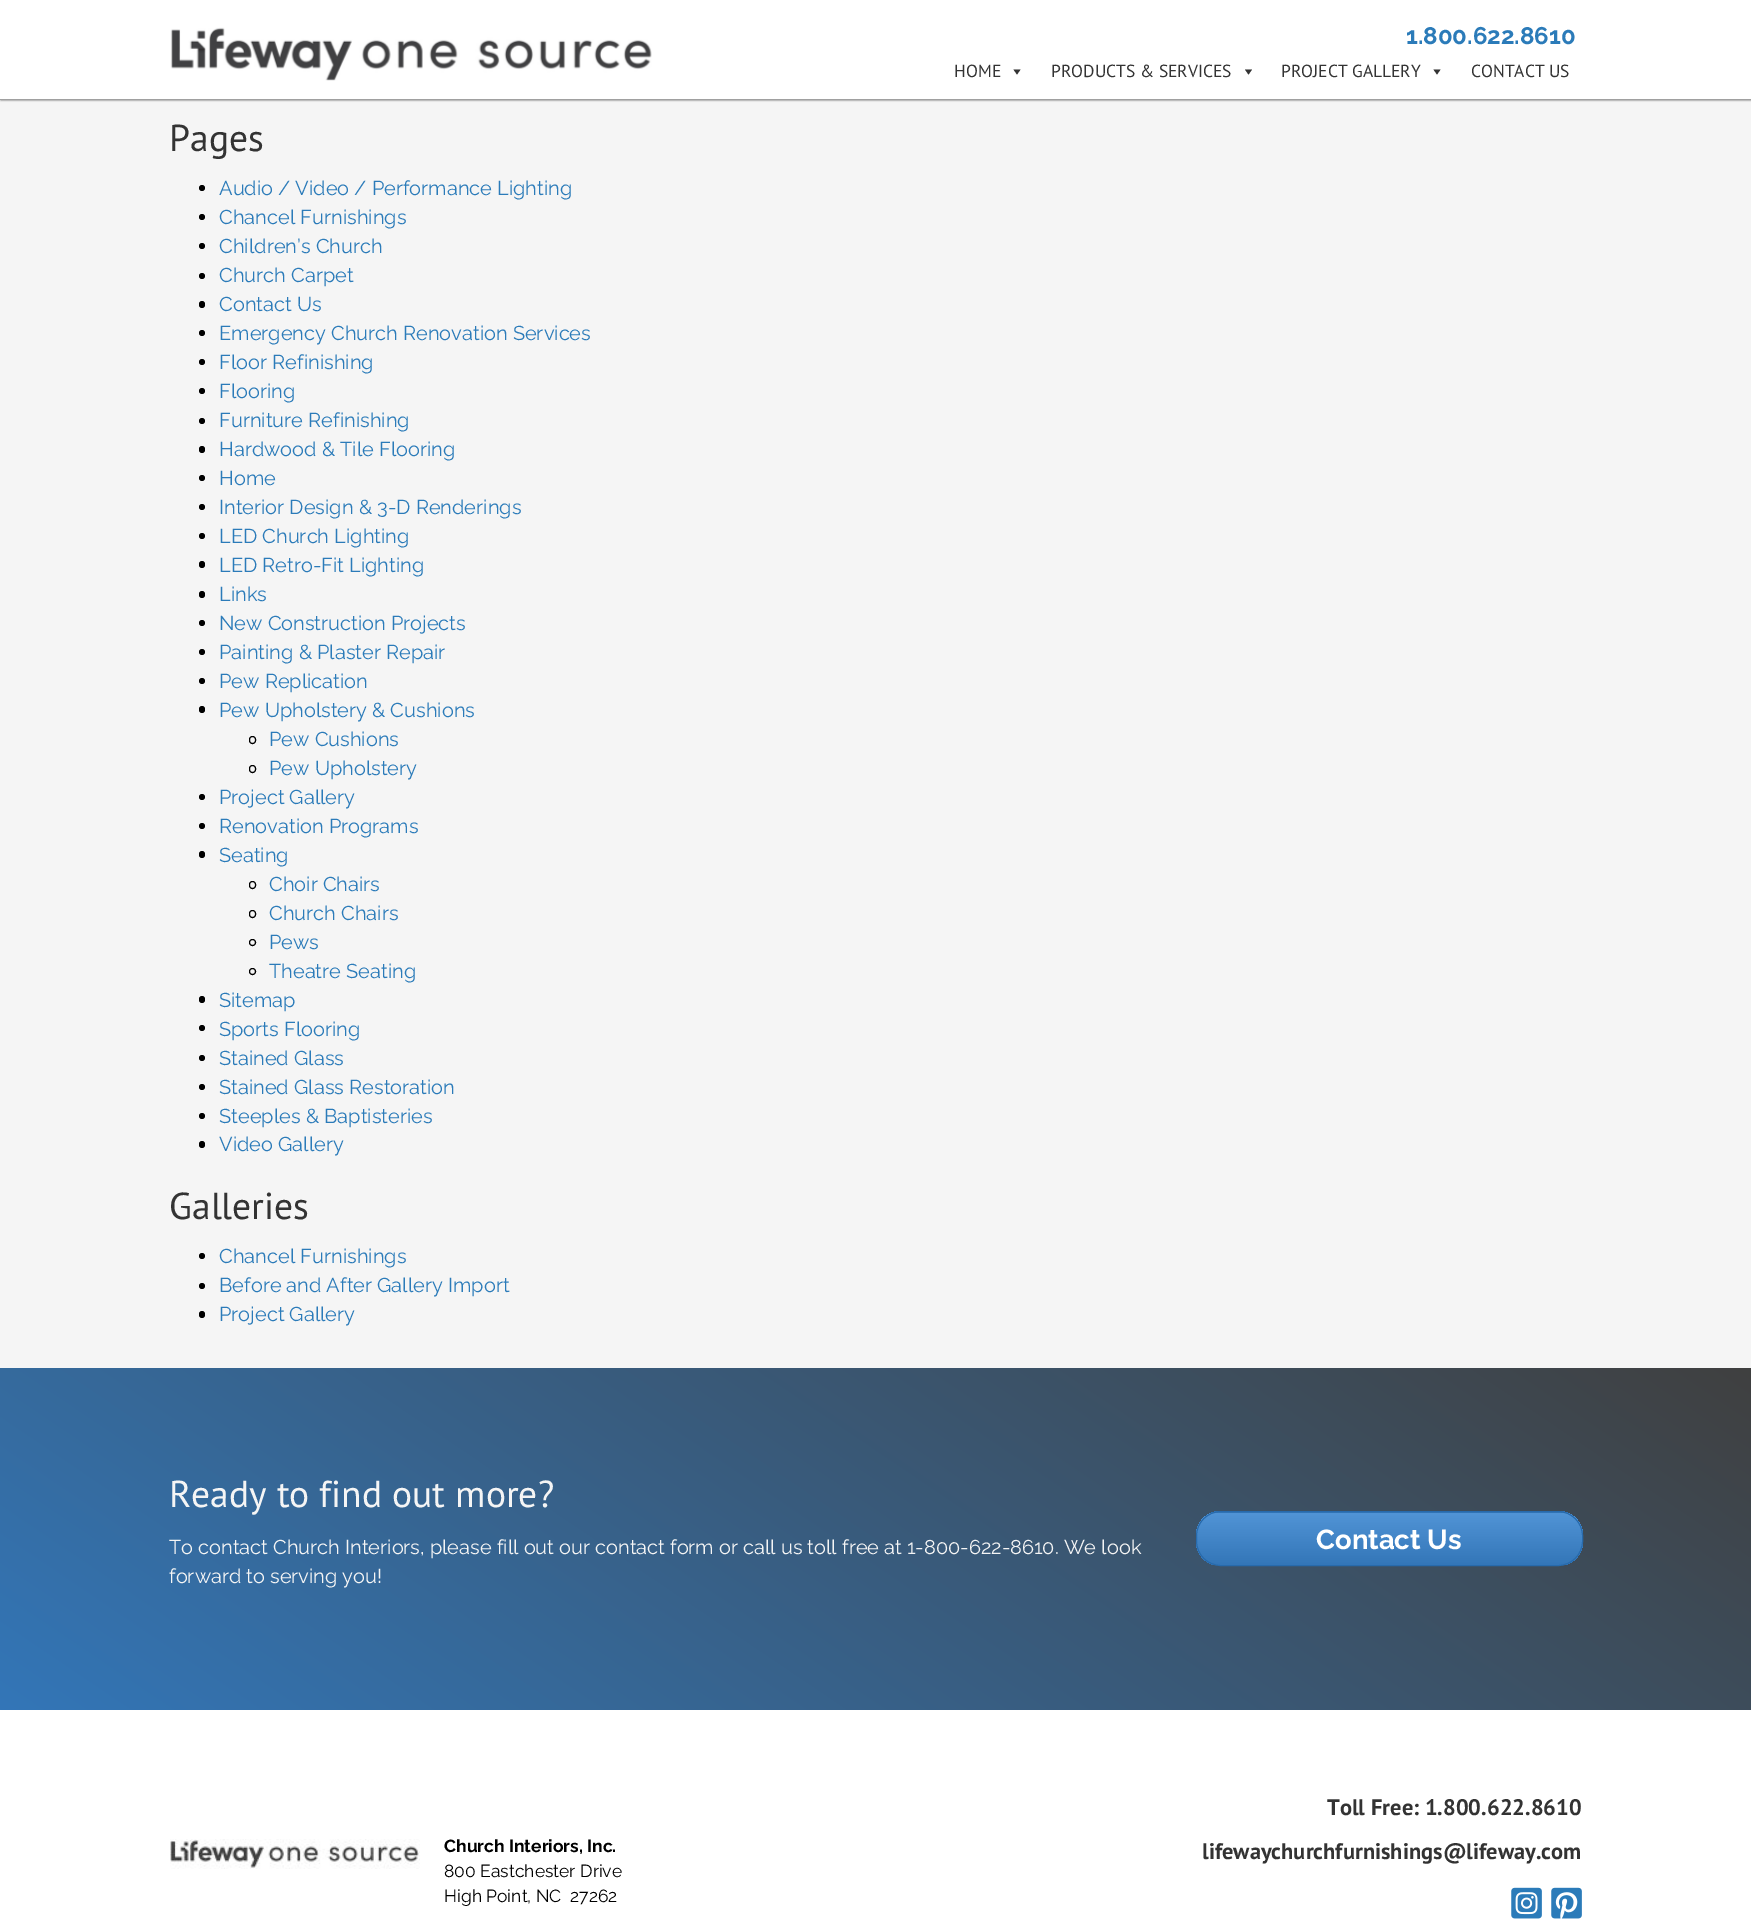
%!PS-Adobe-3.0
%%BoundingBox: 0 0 1751 1925
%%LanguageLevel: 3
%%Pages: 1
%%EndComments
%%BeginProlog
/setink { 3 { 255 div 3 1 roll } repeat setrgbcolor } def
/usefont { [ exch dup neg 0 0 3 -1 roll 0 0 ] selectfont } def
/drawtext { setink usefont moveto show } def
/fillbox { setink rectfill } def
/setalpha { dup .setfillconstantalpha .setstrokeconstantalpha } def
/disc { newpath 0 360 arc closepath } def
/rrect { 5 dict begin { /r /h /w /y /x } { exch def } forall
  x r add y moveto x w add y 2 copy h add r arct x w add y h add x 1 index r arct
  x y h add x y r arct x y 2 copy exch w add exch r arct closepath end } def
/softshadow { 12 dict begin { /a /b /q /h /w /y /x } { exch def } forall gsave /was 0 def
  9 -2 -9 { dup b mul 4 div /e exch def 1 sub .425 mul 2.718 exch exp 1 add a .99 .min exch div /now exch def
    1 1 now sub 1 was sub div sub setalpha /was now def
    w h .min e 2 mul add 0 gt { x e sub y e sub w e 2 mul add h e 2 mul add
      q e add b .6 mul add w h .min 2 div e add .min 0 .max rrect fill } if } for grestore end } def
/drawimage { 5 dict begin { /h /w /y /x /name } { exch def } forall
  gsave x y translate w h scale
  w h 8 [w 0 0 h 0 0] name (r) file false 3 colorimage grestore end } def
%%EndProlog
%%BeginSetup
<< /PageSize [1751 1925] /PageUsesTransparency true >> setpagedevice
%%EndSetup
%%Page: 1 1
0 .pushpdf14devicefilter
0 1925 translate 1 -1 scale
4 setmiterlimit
0 0 1751 1925 245 245 245 fillbox
64 64 64 setink
1 0 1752 100 0 1 1 softshadow
0 0 1751 99 255 255 255 fillbox
0 99 1751 1 160 160 160 fillbox
(assets/img1.rgb) 170 27 482 54 drawimage
(1.800.622.8610) 1406 44 /Raleway-Bold 24 43 123 185 drawtext
(HOME) 954 77 /PTSans-Regular 17.5 51 51 51 drawtext
1020.5 69.5 moveto 1017 74.5 lineto 1013.5 69.5 lineto closepath fill
(PRODUCTS & SERVICES) 1051 77 /PTSans-Regular 17.5 51 51 51 drawtext
1252 69.5 moveto 1248.5 74.5 lineto 1245 69.5 lineto closepath fill
(PROJECT GALLERY) 1281 77 /PTSans-Regular 17.5 51 51 51 drawtext
1440.5 69.5 moveto 1437 74.5 lineto 1433.5 69.5 lineto closepath fill
(CONTACT US) 1471 77 /PTSans-Regular 17.5 51 51 51 drawtext
(Pages) 169 151 /PTSans-Regular 37.5 51 51 51 drawtext
0 0 0 setink
202 188 3 disc fill
(Audio / Video / Performance Lighting) 219 195 /Raleway-Regular 20 43 123 185 drawtext
0 0 0 setink
202 217 3 disc fill
(Chancel Furnishings) 219 224 /Raleway-Regular 20 43 123 185 drawtext
0 0 0 setink
202 246 3 disc fill
(Children’s Church) 219 253 /Raleway-Regular 20 43 123 185 drawtext
0 0 0 setink
202 276 3 disc fill
(Church Carpet) 219 282 /Raleway-Regular 20 43 123 185 drawtext
0 0 0 setink
199 301 6 7 3 rrect fill
(Contact Us) 219 311 /Raleway-Regular 20 43 123 185 drawtext
0 0 0 setink
202 333 3 disc fill
(Emergency Church Renovation Services) 219 340 /Raleway-Regular 20 43 123 185 drawtext
0 0 0 setink
202 362 3 disc fill
(Floor Refinishing) 219 369 /Raleway-Regular 20 43 123 185 drawtext
0 0 0 setink
202 391 3 disc fill
(Flooring) 219 398 /Raleway-Regular 20 43 123 185 drawtext
0 0 0 setink
202 421 3 disc fill
(Furniture Refinishing) 219 427 /Raleway-Regular 20 43 123 185 drawtext
0 0 0 setink
199 446 6 7 3 rrect fill
(Hardwood & Tile Flooring) 219 456 /Raleway-Regular 20 43 123 185 drawtext
0 0 0 setink
202 478 3 disc fill
(Home) 219 485 /Raleway-Regular 20 43 123 185 drawtext
0 0 0 setink
202 507 3 disc fill
(Interior Design & 3-D Renderings) 219 514 /Raleway-Regular 20 43 123 185 drawtext
0 0 0 setink
202 536 3 disc fill
(LED Church Lighting) 219 543 /Raleway-Regular 20 43 123 185 drawtext
0 0 0 setink
199 561 6 7 3 rrect fill
(LED Retro-Fit Lighting) 219 572 /Raleway-Regular 20 43 123 185 drawtext
0 0 0 setink
199 591 6 7 3 rrect fill
(Links) 219 601 /Raleway-Regular 20 43 123 185 drawtext
0 0 0 setink
202 623 3 disc fill
(New Construction Projects) 219 630 /Raleway-Regular 20 43 123 185 drawtext
0 0 0 setink
202 652 3 disc fill
(Painting & Plaster Repair) 219 659 /Raleway-Regular 20 43 123 185 drawtext
0 0 0 setink
202 681 3 disc fill
(Pew Replication) 219 688 /Raleway-Regular 20 43 123 185 drawtext
0 0 0 setink
199 706 6 7 3 rrect fill
(Pew Upholstery & Cushions) 219 717 /Raleway-Regular 20 43 123 185 drawtext
0 0 0 setink
249.5 736.5 6 7 3 rrect stroke
(Pew Cushions) 269 746 /Raleway-Regular 20 43 123 185 drawtext
0 0 0 setink
249.5 765.5 6 7 3 rrect stroke
(Pew Upholstery) 269 775 /Raleway-Regular 20 43 123 185 drawtext
0 0 0 setink
202 797 3 disc fill
(Project Gallery) 219 804 /Raleway-Regular 20 43 123 185 drawtext
0 0 0 setink
202 826 3 disc fill
(Renovation Programs) 219 833 /Raleway-Regular 20 43 123 185 drawtext
0 0 0 setink
199 851 6 7 3 rrect fill
(Seating) 219 862 /Raleway-Regular 20 43 123 185 drawtext
0 0 0 setink
249.5 881.5 6 7 3 rrect stroke
(Choir Chairs) 269 891 /Raleway-Regular 20 43 123 185 drawtext
0 0 0 setink
249.5 910.5 6 7 3 rrect stroke
(Church Chairs) 269 920 /Raleway-Regular 20 43 123 185 drawtext
0 0 0 setink
252.5 942.5 3 disc stroke
(Pews) 269 949 /Raleway-Regular 20 43 123 185 drawtext
0 0 0 setink
252.5 971.5 3 disc stroke
(Theatre Seating) 269 978 /Raleway-Regular 20 43 123 185 drawtext
0 0 0 setink
199 996 6 7 3 rrect fill
(Sitemap) 219 1007 /Raleway-Regular 20 43 123 185 drawtext
0 0 0 setink
202 1028 3 disc fill
(Sports Flooring) 219 1036 /Raleway-Regular 20 43 123 185 drawtext
0 0 0 setink
202 1058 3 disc fill
(Stained Glass) 219 1065 /Raleway-Regular 20 43 123 185 drawtext
0 0 0 setink
202 1087 3 disc fill
(Stained Glass Restoration) 219 1094 /Raleway-Regular 20 43 123 185 drawtext
0 0 0 setink
202 1116 3 disc fill
(Steeples & Baptisteries) 219 1123 /Raleway-Regular 20 43 123 185 drawtext
0 0 0 setink
199 1141 6 7 3 rrect fill
(Video Gallery) 219 1151 /Raleway-Regular 20 43 123 185 drawtext
(Galleries) 169 1219 /PTSans-Regular 37.5 51 51 51 drawtext
0 0 0 setink
202 1256 3 disc fill
(Chancel Furnishings) 219 1263 /Raleway-Regular 20 43 123 185 drawtext
0 0 0 setink
202 1286 3 disc fill
(Before and After Gallery Import) 219 1292 /Raleway-Regular 20 43 123 185 drawtext
0 0 0 setink
199 1311 6 7 3 rrect fill
(Project Gallery) 219 1321 /Raleway-Regular 20 43 123 185 drawtext
gsave 0 1368 moveto 1751 1368 lineto 1751 1710 lineto 0 1710 lineto closepath clip newpath
<< /ShadingType 2 /ColorSpace /DeviceRGB /Coords [522 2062 1229 1015] /Extend [true true] /Function << /FunctionType 2 /Domain [0 1] /C0 [0.2 0.463 0.722] /C1 [0.251 0.251 0.251] /N 1 >> >> shfill grestore
(Ready to find out more?) 169 1507 /PTSans-Regular 37.5 245 245 245 drawtext
(To contact Church Interiors, please fill out our contact form or call us toll free at 1-800-622-8610. We look) 169 1554 /Raleway-Regular 20 245 245 245 drawtext
(forward to serving you!) 169 1583 /Raleway-Regular 20 245 245 245 drawtext
gsave
1196 1511 387 55 25 rrect clip newpath
gsave 1211 1511 moveto 1568 1511 lineto 1568 1513 lineto 1211 1513 lineto closepath clip newpath
<< /ShadingType 2 /ColorSpace /DeviceRGB /Coords [1389 1460 1389 1513] /Extend [true true] /Function << /FunctionType 2 /Domain [0 1] /C0 [0.318 0.58 0.839] /C1 [0.2 0.463 0.722] /N 1 >> >> shfill grestore
gsave 1196 1513 moveto 1583 1513 lineto 1583 1565 lineto 1196 1565 lineto closepath clip newpath
<< /ShadingType 2 /ColorSpace /DeviceRGB /Coords [1389 1513 1389 1565] /Extend [true true] /Function << /FunctionType 2 /Domain [0 1] /C0 [0.318 0.58 0.839] /C1 [0.2 0.463 0.722] /N 1 >> >> shfill grestore
grestore
39 106 172 setink
1196.5 1511.5 386 54 24.5 rrect stroke
(Contact Us) 1316 1549 /Raleway-Bold 27.5 255 255 255 drawtext
0 1710 1751 215 255 255 255 fillbox
(Toll Free: 1.800.622.8610) 1327 1815 /PTSans-Bold 22.5 51 51 51 drawtext
(lifewaychurchfurnishings@lifeway.com) 1202 1859 /PTSans-Bold 22.5 51 51 51 drawtext
(assets/img2.rgb) 1511 1887 31 32 drawimage
(assets/img3.rgb) 1551 1887 31 32 drawimage
(assets/img4.rgb) 170 1839 250 30 drawimage
(Church Interiors, Inc.) 444 1852 /Raleway-Bold 17.5 0 0 0 drawtext
(800 Eastchester Drive) 444 1877 /Raleway-Regular 17.5 0 0 0 drawtext
(High Point, NC  27262) 444 1902 /Raleway-Regular 17.5 0 0 0 drawtext
.poppdf14devicefilter showpage
%%EOF
